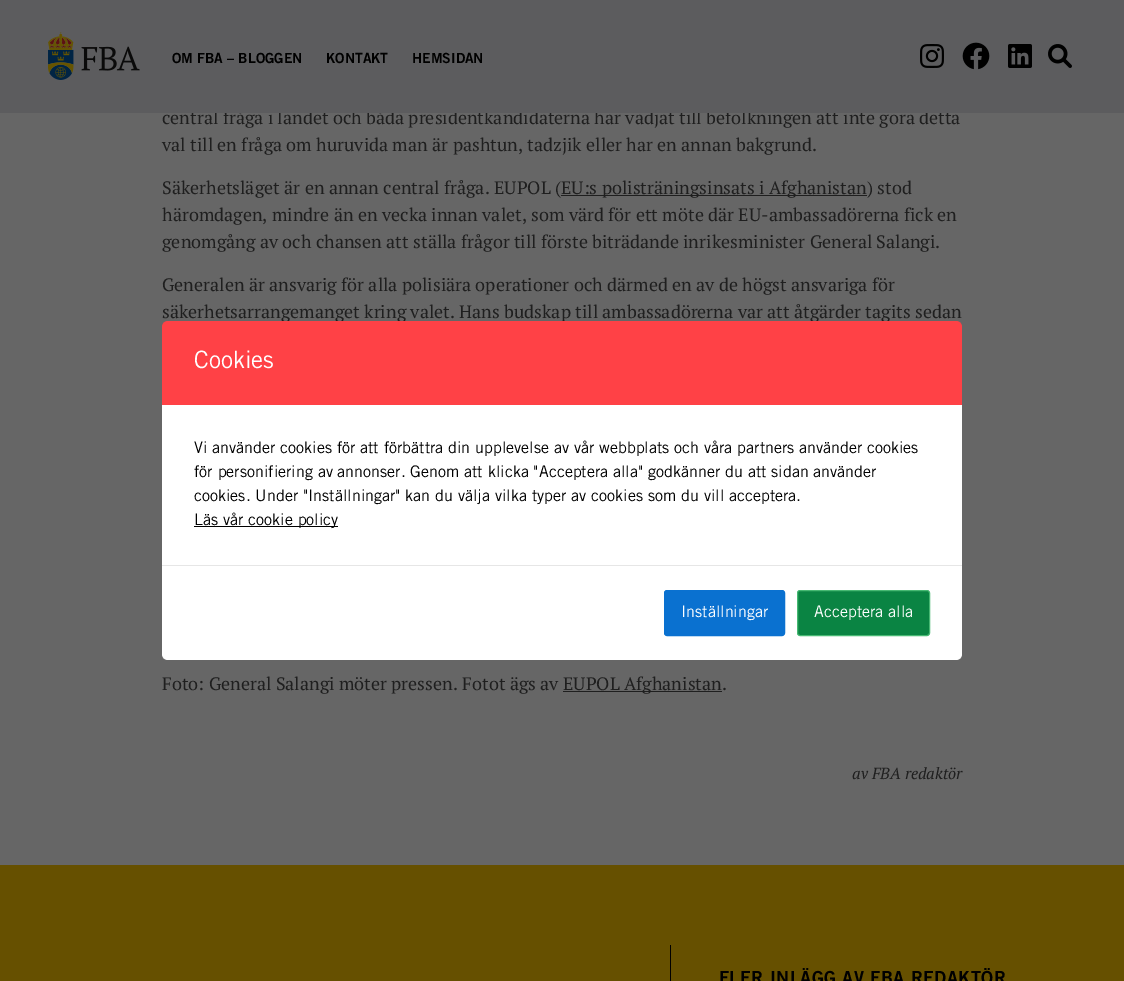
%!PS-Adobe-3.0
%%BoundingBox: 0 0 1124 981
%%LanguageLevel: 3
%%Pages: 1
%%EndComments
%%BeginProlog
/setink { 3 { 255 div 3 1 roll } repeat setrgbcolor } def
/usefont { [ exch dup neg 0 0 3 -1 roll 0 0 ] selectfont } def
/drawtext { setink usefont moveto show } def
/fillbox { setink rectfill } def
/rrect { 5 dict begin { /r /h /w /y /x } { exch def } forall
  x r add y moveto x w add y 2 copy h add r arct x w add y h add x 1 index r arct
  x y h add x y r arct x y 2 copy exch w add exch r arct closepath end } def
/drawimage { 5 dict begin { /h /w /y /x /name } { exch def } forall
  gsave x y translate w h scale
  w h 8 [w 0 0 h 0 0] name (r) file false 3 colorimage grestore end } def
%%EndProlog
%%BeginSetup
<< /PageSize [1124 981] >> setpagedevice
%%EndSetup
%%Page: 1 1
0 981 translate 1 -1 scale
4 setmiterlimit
0 0 1124 981 102 102 102 fillbox
(central fråga i landet och båda presidentkandidaterna har vädjat till befolkningen att inte göra detta) 162 124 /PTSerif-Regular 18 31 31 31 drawtext
0 0 1124 113 92 92 94 fillbox
(assets/img1.rgb) 48 32 92 48 drawimage
(OM FBA – BLOGGEN) 172 63 /TradeGothic-Bold 14 0 0 0 drawtext
(KONTAKT) 326 63 /TradeGothic-Bold 14 0 0 0 drawtext
(HEMSIDAN) 412 63 /TradeGothic-Bold 14 0 0 0 drawtext
(assets/img2.rgb) 920 44 24 24 drawimage
(assets/img3.rgb) 962 42 28 28 drawimage
(assets/img4.rgb) 1008 44 24 24 drawimage
(assets/img5.rgb) 1048 44 24 24 drawimage
(val till en fråga om huruvida man är pashtun, tadzjik eller har en annan bakgrund.) 162 151 /PTSerif-Regular 18 31 31 31 drawtext
(Säkerhetsläget är en annan central fråga. EUPOL \() 162 194 /PTSerif-Regular 18 31 31 31 drawtext
561 195 306 1 31 31 31 fillbox
(EU:s polisträningsinsats i Afghanistan\) stod) 561 194 /PTSerif-Regular 18 31 31 31 drawtext
(häromdagen, mindre än en vecka innan valet, som värd för ett möte där EU-ambassadörerna fick en) 162 221 /PTSerif-Regular 18 31 31 31 drawtext
(genomgång av och chansen att ställa frågor till förste biträdande inrikesminister General Salangi.) 162 248 /PTSerif-Regular 18 31 31 31 drawtext
(Generalen är ansvarig för alla polisiära operationer och därmed en av de högst ansvariga för) 162 291 /PTSerif-Regular 18 31 31 31 drawtext
(säkerhetsarrangemanget kring valet. Hans budskap till ambassadörerna var att åtgärder tagits sedan) 162 318 /PTSerif-Regular 18 31 31 31 drawtext
(Foto: General Salangi möter pressen. Fotot ägs av) 162 690 /PTSerif-Regular 18 31 31 31 drawtext
563 691 159 1 31 31 31 fillbox
(EUPOL Afghanistan.) 563 690 /PTSerif-Regular 18 31 31 31 drawtext
(av FBA redaktör) 852 779 /PTSerif-Italic 16 31 31 31 drawtext
0 865 1124 116 102 80 0 fillbox
670 945 1 36 0 0 0 fillbox
/TradeGothic-Bold 18 usefont
719 984 moveto 0.45 0 (FLER INLÄGG AV FBA REDAKTÖR) ashow
255 65 70 setink
168 321 moveto 956 321 lineto 959.5 321 962 323.5 962 327 curveto 962 405 lineto 162 405 lineto 162 327 lineto 162 323.5 164.5 321 168 321 curveto closepath fill
(Cookies) 194 368 /TradeGothic-Regular 24 255 255 255 drawtext
162 405 800 160 255 255 255 fillbox
(Vi använder cookies för att förbättra din upplevelse av vår webbplats och våra partners använder cookies) 194 453 /TradeGothic-Regular 16 0 0 0 drawtext
(för personifiering av annonser. Genom att klicka "Acceptera alla" godkänner du att sidan använder) 194 477 /TradeGothic-Regular 16 0 0 0 drawtext
(cookies. Under "Inställningar" kan du välja vilka typer av cookies som du vill acceptera.) 194 501 /TradeGothic-Regular 16 0 0 0 drawtext
194 526 144 1 0 0 0 fillbox
(Läs vår cookie policy) 194 525 /TradeGothic-Regular 16 0 0 0 drawtext
255 255 255 setink
162 566 moveto 962 566 lineto 962 654 lineto 962 657.5 959.5 660 956 660 curveto 168 660 lineto 164.5 660 162 657.5 162 654 curveto closepath fill
162 565 800 1 230 230 230 fillbox
10 113 208 setink
664.5 590.5 120 45 2.5 rrect gsave fill grestore
stroke
(Inställningar) 681 617 /TradeGothic-Regular 16 255 255 255 drawtext
10 132 67 setink
797.5 590.5 132 45 2.5 rrect gsave fill grestore
71 185 115 setink
stroke
(Acceptera alla) 814 617 /TradeGothic-Regular 16 255 255 255 drawtext
showpage
%%EOF
